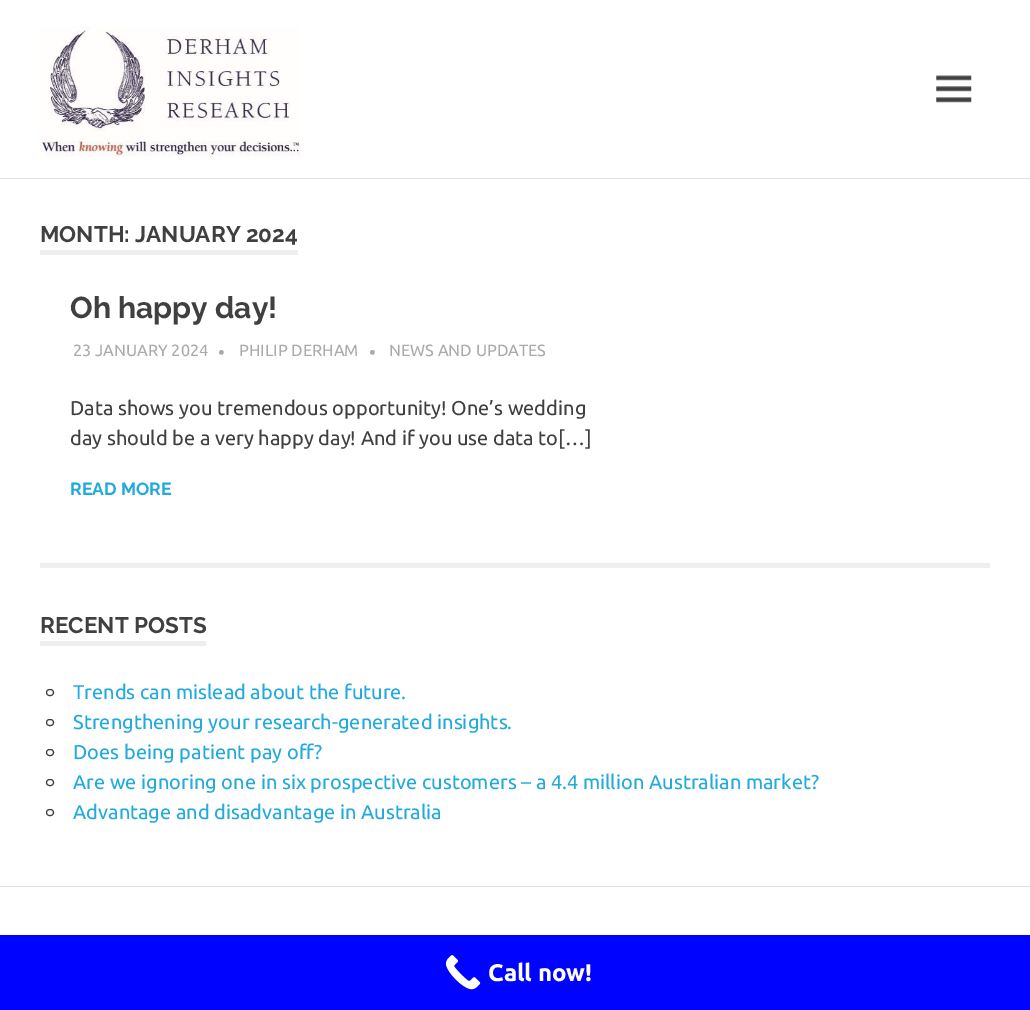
%!PS-Adobe-3.0
%%BoundingBox: 0 0 1030 1010
%%LanguageLevel: 3
%%Pages: 1
%%EndComments
%%BeginProlog
/setink { 3 { 255 div 3 1 roll } repeat setrgbcolor } def
/usefont { [ exch dup neg 0 0 3 -1 roll 0 0 ] selectfont } def
/drawtext { setink usefont moveto show } def
/fillbox { setink rectfill } def
/rrect { 5 dict begin { /r /h /w /y /x } { exch def } forall
  x r add y moveto x w add y 2 copy h add r arct x w add y h add x 1 index r arct
  x y h add x y r arct x y 2 copy exch w add exch r arct closepath end } def
/drawimage { 5 dict begin { /h /w /y /x /name } { exch def } forall
  gsave x y translate w h scale
  w h 8 [w 0 0 h 0 0] name (r) file false 3 colorimage grestore end } def
%%EndProlog
%%BeginSetup
<< /PageSize [1030 1010] >> setpagedevice
%%EndSetup
%%Page: 1 1
0 1010 translate 1 -1 scale
4 setmiterlimit
0 0 1030 1010 255 255 255 fillbox
0 178 1030 1 224 224 224 fillbox
(assets/img1.rgb) 40 26 260 131 drawimage
(assets/img2.rgb) 936 75 36 28 drawimage
40 250 258 5 238 238 238 fillbox
(MONTH: JANUARY 2024) 40 242 /Raleway-Bold 22.5 64 64 64 drawtext
(Oh happy day!) 70 318 /Raleway-Bold 30 64 64 64 drawtext
(23 JANUARY 2024) 73 356 /Ubuntu-Regular 16.25 170 170 170 drawtext
(•) 218 359 /Ubuntu-Regular 19 170 170 170 drawtext
(PHILIP DERHAM) 239 356 /Ubuntu-Regular 16.25 170 170 170 drawtext
(•) 369 359 /Ubuntu-Regular 19 170 170 170 drawtext
(NEWS AND UPDATES) 389 356 /Ubuntu-Regular 16.25 170 170 170 drawtext
(Data shows you tremendous opportunity! One’s wedding) 70 415 /Ubuntu-Regular 20 64 64 64 drawtext
(day should be a very happy day! And if you use data to[…]) 70 445 /Ubuntu-Regular 20 64 64 64 drawtext
(READ MORE) 70 495 /Raleway-Bold 17.5 34 170 221 drawtext
40 563 950 5 238 238 238 fillbox
40 641 166 5 238 238 238 fillbox
(RECENT POSTS) 40 633 /Raleway-Bold 22.5 64 64 64 drawtext
46.5 689.5 7 6 3 rrect stroke
(Trends can mislead about the future.) 73 699 /Ubuntu-Regular 20 34 170 221 drawtext
64 64 64 setink
46.5 719.5 7 6 3 rrect stroke
(Strengthening your research-generated insights.) 73 729 /Ubuntu-Regular 20 34 170 221 drawtext
64 64 64 setink
46.5 749.5 7 6 3 rrect stroke
(Does being patient pay off?) 73 759 /Ubuntu-Regular 20 34 170 221 drawtext
64 64 64 setink
46.5 779.5 7 6 3 rrect stroke
(Are we ignoring one in six prospective customers – a 4.4 million Australian market?) 73 789 /Ubuntu-Regular 20 34 170 221 drawtext
64 64 64 setink
46.5 809.5 7 6 3 rrect stroke
(Advantage and disadvantage in Australia) 73 819 /Ubuntu-Regular 20 34 170 221 drawtext
0 886 1030 1 224 224 224 fillbox
0 935 1030 75 0 4 255 fillbox
(assets/img3.rgb) 445 955 36 35 drawimage
(Call now!) 488 981 /Ubuntu-Bold 24 255 255 255 drawtext
showpage
%%EOF
